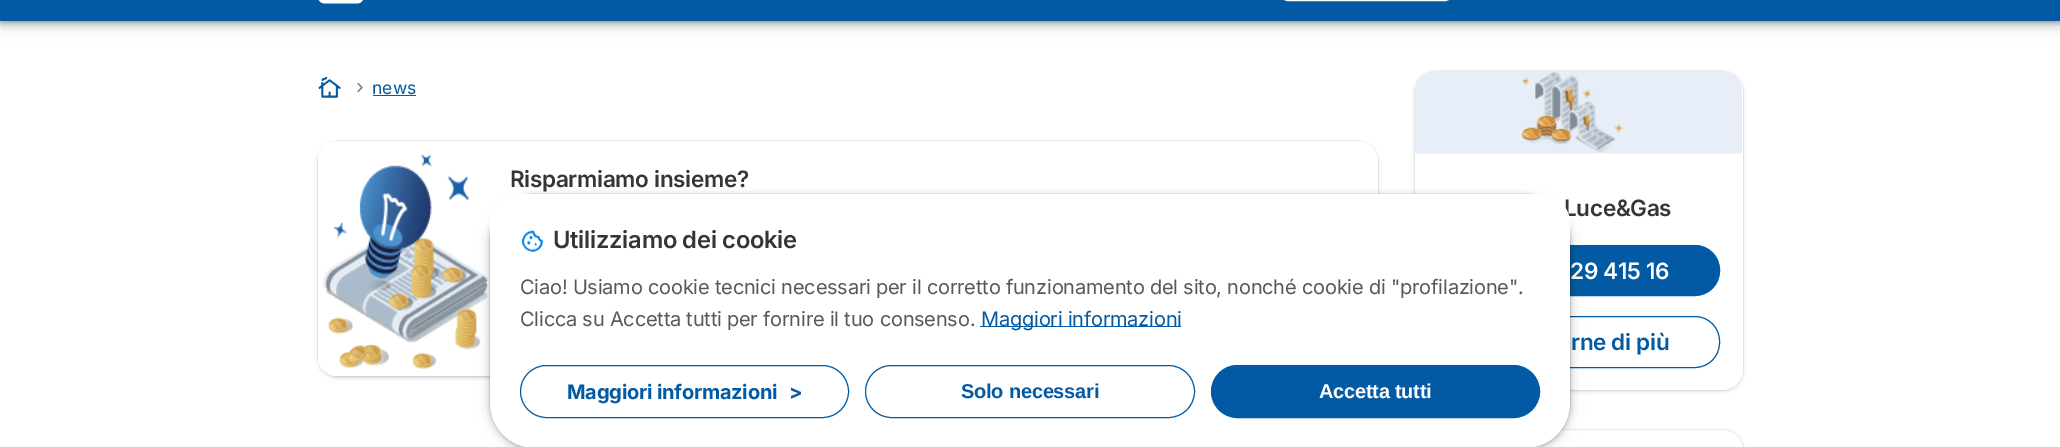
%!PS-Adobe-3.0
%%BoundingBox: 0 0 2060 447
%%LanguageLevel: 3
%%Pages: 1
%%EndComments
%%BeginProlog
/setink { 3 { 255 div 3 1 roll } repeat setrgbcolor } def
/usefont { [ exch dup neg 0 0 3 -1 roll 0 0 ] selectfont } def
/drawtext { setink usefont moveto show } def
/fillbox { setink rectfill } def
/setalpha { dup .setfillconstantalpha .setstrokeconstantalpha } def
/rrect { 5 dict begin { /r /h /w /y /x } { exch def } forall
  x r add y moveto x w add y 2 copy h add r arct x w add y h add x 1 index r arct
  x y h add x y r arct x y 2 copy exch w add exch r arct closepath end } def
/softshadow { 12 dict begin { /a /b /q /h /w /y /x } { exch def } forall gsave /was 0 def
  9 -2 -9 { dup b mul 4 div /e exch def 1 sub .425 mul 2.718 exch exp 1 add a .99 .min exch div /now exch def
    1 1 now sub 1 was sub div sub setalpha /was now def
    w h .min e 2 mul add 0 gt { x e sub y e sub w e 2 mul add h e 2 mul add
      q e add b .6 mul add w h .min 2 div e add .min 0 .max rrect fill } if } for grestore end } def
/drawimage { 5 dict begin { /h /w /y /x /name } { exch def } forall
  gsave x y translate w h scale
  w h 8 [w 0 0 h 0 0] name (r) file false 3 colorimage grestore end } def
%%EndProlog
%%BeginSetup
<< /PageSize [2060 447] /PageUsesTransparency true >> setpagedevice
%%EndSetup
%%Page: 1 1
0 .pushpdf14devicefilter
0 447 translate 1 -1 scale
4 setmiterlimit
0 0 2060 447 255 255 255 fillbox
0 0 0 setink
0 -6 2060 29 0 2 0.16 softshadow
1 -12 2059 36 0 4 0.16 softshadow
1 -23 2058 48 0 7.5 0.15 softshadow
0 0 2060 21 1 90 163 fillbox
255 255 255 setink
1280.5 -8.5 172 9 7.5 rrect stroke
(assets/img1.rgb) 318 0 45 4 drawimage
(assets/img2.rgb) 318 76 23 22 drawimage
(assets/img3.rgb) 357 82 6 11 drawimage
(news) 372 94 /Inter-Regular 17.5 1 90 163 drawtext
373 95 43 1 1 90 163 fillbox
0 0 0 setink
318 143 1060 235 20 2 0.16 softshadow
318 141 1060 235 20 0.5 0.17 softshadow
255 255 255 setink
318 141 1060 235 20 rrect fill
(assets/img4.rgb) 318 141 170 235 drawimage
/Inter-SemiBold 22.5 usefont
52 53 53 setink
510 187 moveto -0.3 0 (Risparmiamo insieme?) ashow
0 0 0 setink
1415 73 328 318 20 2 0.16 softshadow
1415 71 328 319 20 0.5 0.17 softshadow
255 255 255 setink
1415 71 328 319 20 rrect fill
(assets/img5.rgb) 1415 71 327 83 drawimage
52 53 53 setink
1564 216 moveto -0.3 0 (Luce&Gas) ashow
1 90 163 setink
1438.5 245.5 281 50 24.5 rrect gsave fill grestore
stroke
255 255 255 setink
1570 279 moveto -0.3 0 (29 415 16) ashow
1 90 163 setink
1438.5 316.5 281 51 24.5 rrect stroke
1571 350 moveto -0.3 0 (rne di più) ashow
0 0 0 setink
1415 430 328 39 20 0.5 0.17 softshadow
1415 431 328 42 20 2 0.16 softshadow
255 255 255 setink
1415 430 328 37 20 rrect fill
0 0 0 setink
491 200 1078 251 44 7.5 0.14 softshadow
491 198 1079 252 45 4 0.16 softshadow
490 195 1080 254 45 2 0.16 softshadow
490 194 1080 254 45 0.5 0.17 softshadow
255 255 255 setink
520 194 moveto 1540 194 lineto 1556.5 194 1570 207.5 1570 224 curveto 1570 403 lineto 1570 428 1550 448 1525 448 curveto 535 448 lineto 510 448 490 428 490 403 curveto 490 224 lineto 490 207.5 503.5 194 520 194 curveto closepath fill
520 194 moveto 1540 194 lineto 1556.5 194 1570 207.5 1570 224 curveto 1570 393 lineto 1570 423.5 1545.5 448 1515 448 curveto 545 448 lineto 514.5 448 490 423.5 490 393 curveto 490 224 lineto 490 207.5 503.5 194 520 194 curveto closepath fill
(assets/img6.rgb) 522 230 21 22 drawimage
/Inter-SemiBold 23.75 usefont
52 53 53 setink
553 248 moveto -0.3 0 (Utilizziamo dei cookie) ashow
/Inter-Regular 20 usefont
88 89 91 setink
520 294 moveto -0.22 0 (Ciao! Usiamo cookie tecnici necessari per il corretto funzionamento del sito, nonché cookie di "profilazione".) ashow
520 326 moveto -0.22 0 (Clicca su Accetta tutti per fornire il tuo consenso.) ashow
980 326 201 1 1 90 163 fillbox
981 326 moveto -0.22 0 (Maggiori informazioni) ashow
520.5 365.5 328 52 26 rrect stroke
/Inter-Bold 20 usefont
567 399 moveto -0.22 0 (Maggiori informazioni) ashow
789 399 moveto -0.22 0 (>) ashow
865.5 365.5 329 52 26 rrect stroke
/LiberationSans-Bold 20 usefont
961 398 moveto -0.22 0 (Solo necessari) ashow
1211.5 365.5 328 52 26 rrect gsave fill grestore
stroke
255 255 255 setink
1319 398 moveto -0.22 0 (Accetta tutti) ashow
.poppdf14devicefilter showpage
%%EOF
